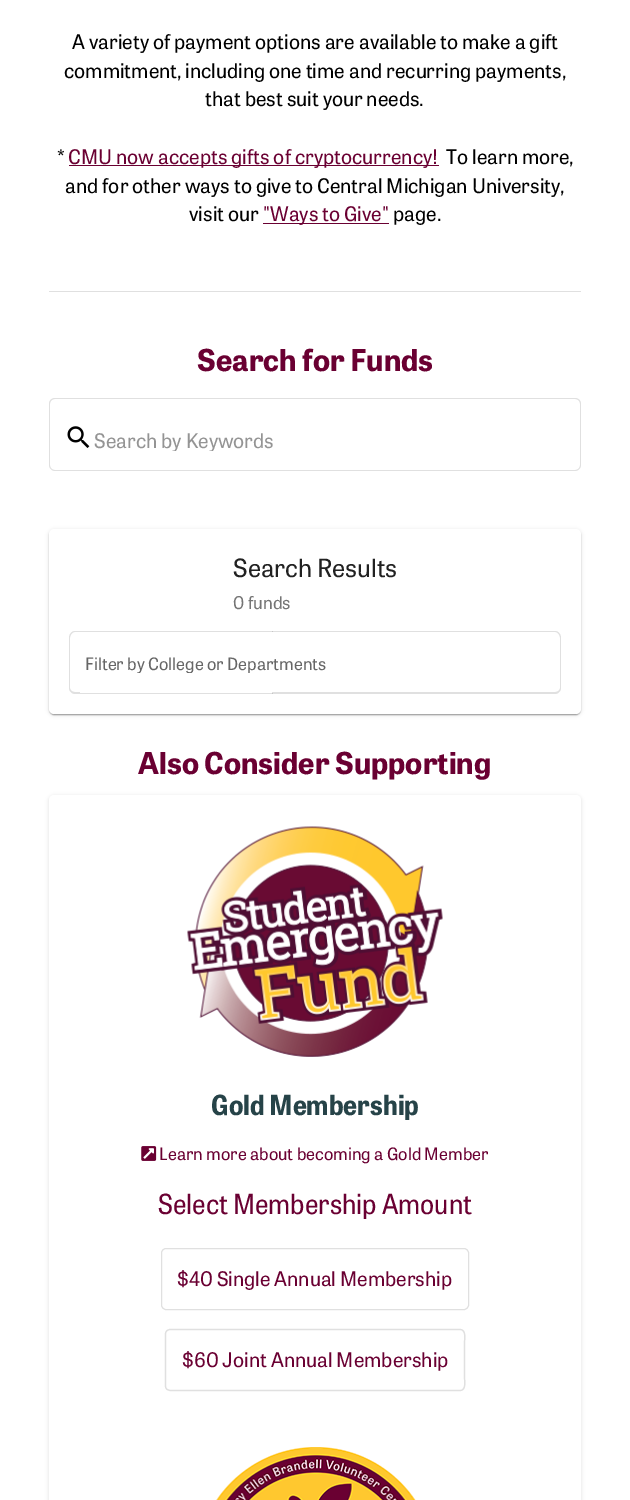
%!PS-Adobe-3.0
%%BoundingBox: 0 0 630 1500
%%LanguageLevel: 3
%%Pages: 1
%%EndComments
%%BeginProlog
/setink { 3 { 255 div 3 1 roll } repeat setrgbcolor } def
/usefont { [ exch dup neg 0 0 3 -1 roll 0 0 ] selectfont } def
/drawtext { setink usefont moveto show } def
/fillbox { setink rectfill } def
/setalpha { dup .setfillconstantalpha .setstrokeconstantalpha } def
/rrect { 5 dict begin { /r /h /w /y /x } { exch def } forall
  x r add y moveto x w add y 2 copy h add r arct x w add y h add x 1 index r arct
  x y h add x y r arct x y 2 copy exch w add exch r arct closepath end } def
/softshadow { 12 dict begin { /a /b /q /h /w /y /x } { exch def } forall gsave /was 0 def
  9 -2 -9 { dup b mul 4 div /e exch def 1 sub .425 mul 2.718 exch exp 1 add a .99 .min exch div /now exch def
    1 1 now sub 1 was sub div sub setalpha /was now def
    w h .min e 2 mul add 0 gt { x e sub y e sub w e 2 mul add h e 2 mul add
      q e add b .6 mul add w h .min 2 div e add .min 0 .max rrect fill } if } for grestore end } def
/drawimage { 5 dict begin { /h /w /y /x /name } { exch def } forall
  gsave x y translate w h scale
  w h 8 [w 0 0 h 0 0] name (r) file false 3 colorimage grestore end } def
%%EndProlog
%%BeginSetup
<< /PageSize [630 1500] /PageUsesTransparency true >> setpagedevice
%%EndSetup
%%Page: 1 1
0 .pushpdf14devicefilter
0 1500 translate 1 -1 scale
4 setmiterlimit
0 0 630 1500 255 255 255 fillbox
(A variety of payment options are available to make a gift) 72 49 /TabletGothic-Regular 20 0 0 0 drawtext
(commitment, including one time and recurring payments,) 64 78 /TabletGothic-Regular 20 0 0 0 drawtext
(that best suit your needs.) 205 106 /TabletGothic-Regular 20 0 0 0 drawtext
(*) 57 164 /TabletGothic-Regular 20 0 0 0 drawtext
69 165 370 1 106 0 50 fillbox
(CMU now accepts gifts of cryptocurrency!) 68 164 /TabletGothic-Regular 20 106 0 50 drawtext
(To learn more,) 446 164 /TabletGothic-Regular 20 0 0 0 drawtext
(and for other ways to give to Central Michigan University,) 65 193 /TabletGothic-Regular 20 0 0 0 drawtext
(visit our) 189 221 /TabletGothic-Regular 20 0 0 0 drawtext
263 223 126 1 106 0 50 fillbox
("Ways to Give") 263 221 /TabletGothic-Regular 20 106 0 50 drawtext
(page.) 393 221 /TabletGothic-Regular 20 0 0 0 drawtext
49 291 532 1 224 224 224 fillbox
(Search for Funds) 197 371 /TabletGothic-Bold 30 106 0 50 drawtext
224 224 224 setink
55 398 moveto 56 398 lineto 56 471 lineto 55 471 lineto 52 471 49 468 49 465 curveto 49 404 lineto 49 400 52 398 55 398 curveto closepath 55 399 moveto 56 399 lineto 56 470 lineto 55 470 lineto 52 470 50 468 50 465 curveto 50 404 lineto 50 401 52 399 55 399 curveto closepath eofill
56 398 moveto 575 398 lineto 578 398 581 400 581 404 curveto 581 465 lineto 581 468 578 471 575 471 curveto 56 471 lineto closepath 56 399 moveto 575 399 lineto 578 399 580 401 580 404 curveto 580 465 lineto 580 468 578 470 575 470 curveto 56 470 lineto closepath eofill
(assets/img1.rgb) 67 426 23 22 drawimage
gsave
94 429 467 22 rectclip
(Search by Keywords) 94 448 /TabletGothic-Regular 20 148 148 148 drawtext
grestore
0 0 0 setink
49 530 532 185 5 2 0.12 softshadow
49 530 532 185 5 0.5 0.14 softshadow
50 533 530 182 4 0.5 0.2 softshadow
255 255 255 setink
49 529 532 185 5 rrect fill
(Search Results) 233 577 /TabletGothic-Regular 25 33 33 33 drawtext
(0 funds) 233 609 /TabletGothic-Regular 17.5 117 117 117 drawtext
224 224 224 setink
75 631 moveto 80 631 lineto 80 694 lineto 75 694 lineto 72 694 69 691 69 688 curveto 69 638 lineto 69 634 72 631 75 631 curveto closepath 75 632 moveto 80 632 lineto 80 692 lineto 75 692 lineto 72 692 70 690 70 688 curveto 70 638 lineto 70 635 72 632 75 632 curveto closepath eofill
80 631 193 1 224 224 224 fillbox
80 693 193 1 224 224 224 fillbox
0.12 setalpha
0 0 0 setink
272 631 moveto 555 631 lineto 558 631 561 634 561 638 curveto 561 688 lineto 561 691 558 694 555 694 curveto 272 694 lineto closepath 272 632 moveto 555 632 lineto 558 632 560 635 560 638 curveto 560 688 lineto 560 690 558 692 555 692 curveto 272 692 lineto closepath eofill
gsave
81 654 249 19 rectclip
1 setalpha
(Filter by College or Departments) 85 670 /TabletGothic-Regular 17 102 102 102 drawtext
grestore
1 setalpha
(Also Consider Supporting) 138 774 /TabletGothic-Bold 30 106 0 50 drawtext
0 0 0 setink
49 796 532 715 5 2 0.12 softshadow
255 255 255 setink
49 795 532 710 5 rrect fill
(assets/img2.rgb) 187 826 256 231 drawimage
(Gold Membership) 211 1115 /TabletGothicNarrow-Bold 27.5 38 67 72 drawtext
(assets/img3.rgb) 141 1146 16 15 drawimage
(Learn more about becoming a Gold Member) 159 1160 /TabletGothic-Regular 17 106 0 50 drawtext
(Select Membership Amount) 158 1214 /TabletGothicNarrow-Regular 27.5 106 0 50 drawtext
224 224 224 setink
161.5 1248.5 307 61 4.5 rrect stroke
($40 Single Annual Membership) 177 1286 /TabletGothic-Regular 20 106 0 50 drawtext
224 224 224 setink
1.2 setlinewidth
167 1330.5 moveto 169.5 1329.5 lineto 460 1329.5 lineto 466.5 1329.5 464.5 1339.5 464.5 1342.5 curveto 464.5 1377.5 lineto 464.5 1380.5 466.5 1390.5 460 1390.5 curveto 170 1390.5 lineto 167 1389.5 lineto stroke
167 1389.5 moveto 166 1388.5 165.5 1387.5 165.5 1386 curveto 165.5 1334 lineto 165.5 1332.5 166 1331.5 167 1330.5 curveto stroke
($60 Joint Annual Membership) 182 1367 /TabletGothic-Regular 20 106 0 50 drawtext
(assets/img4.rgb) 216 1447 200 53 drawimage
.poppdf14devicefilter showpage
%%EOF
